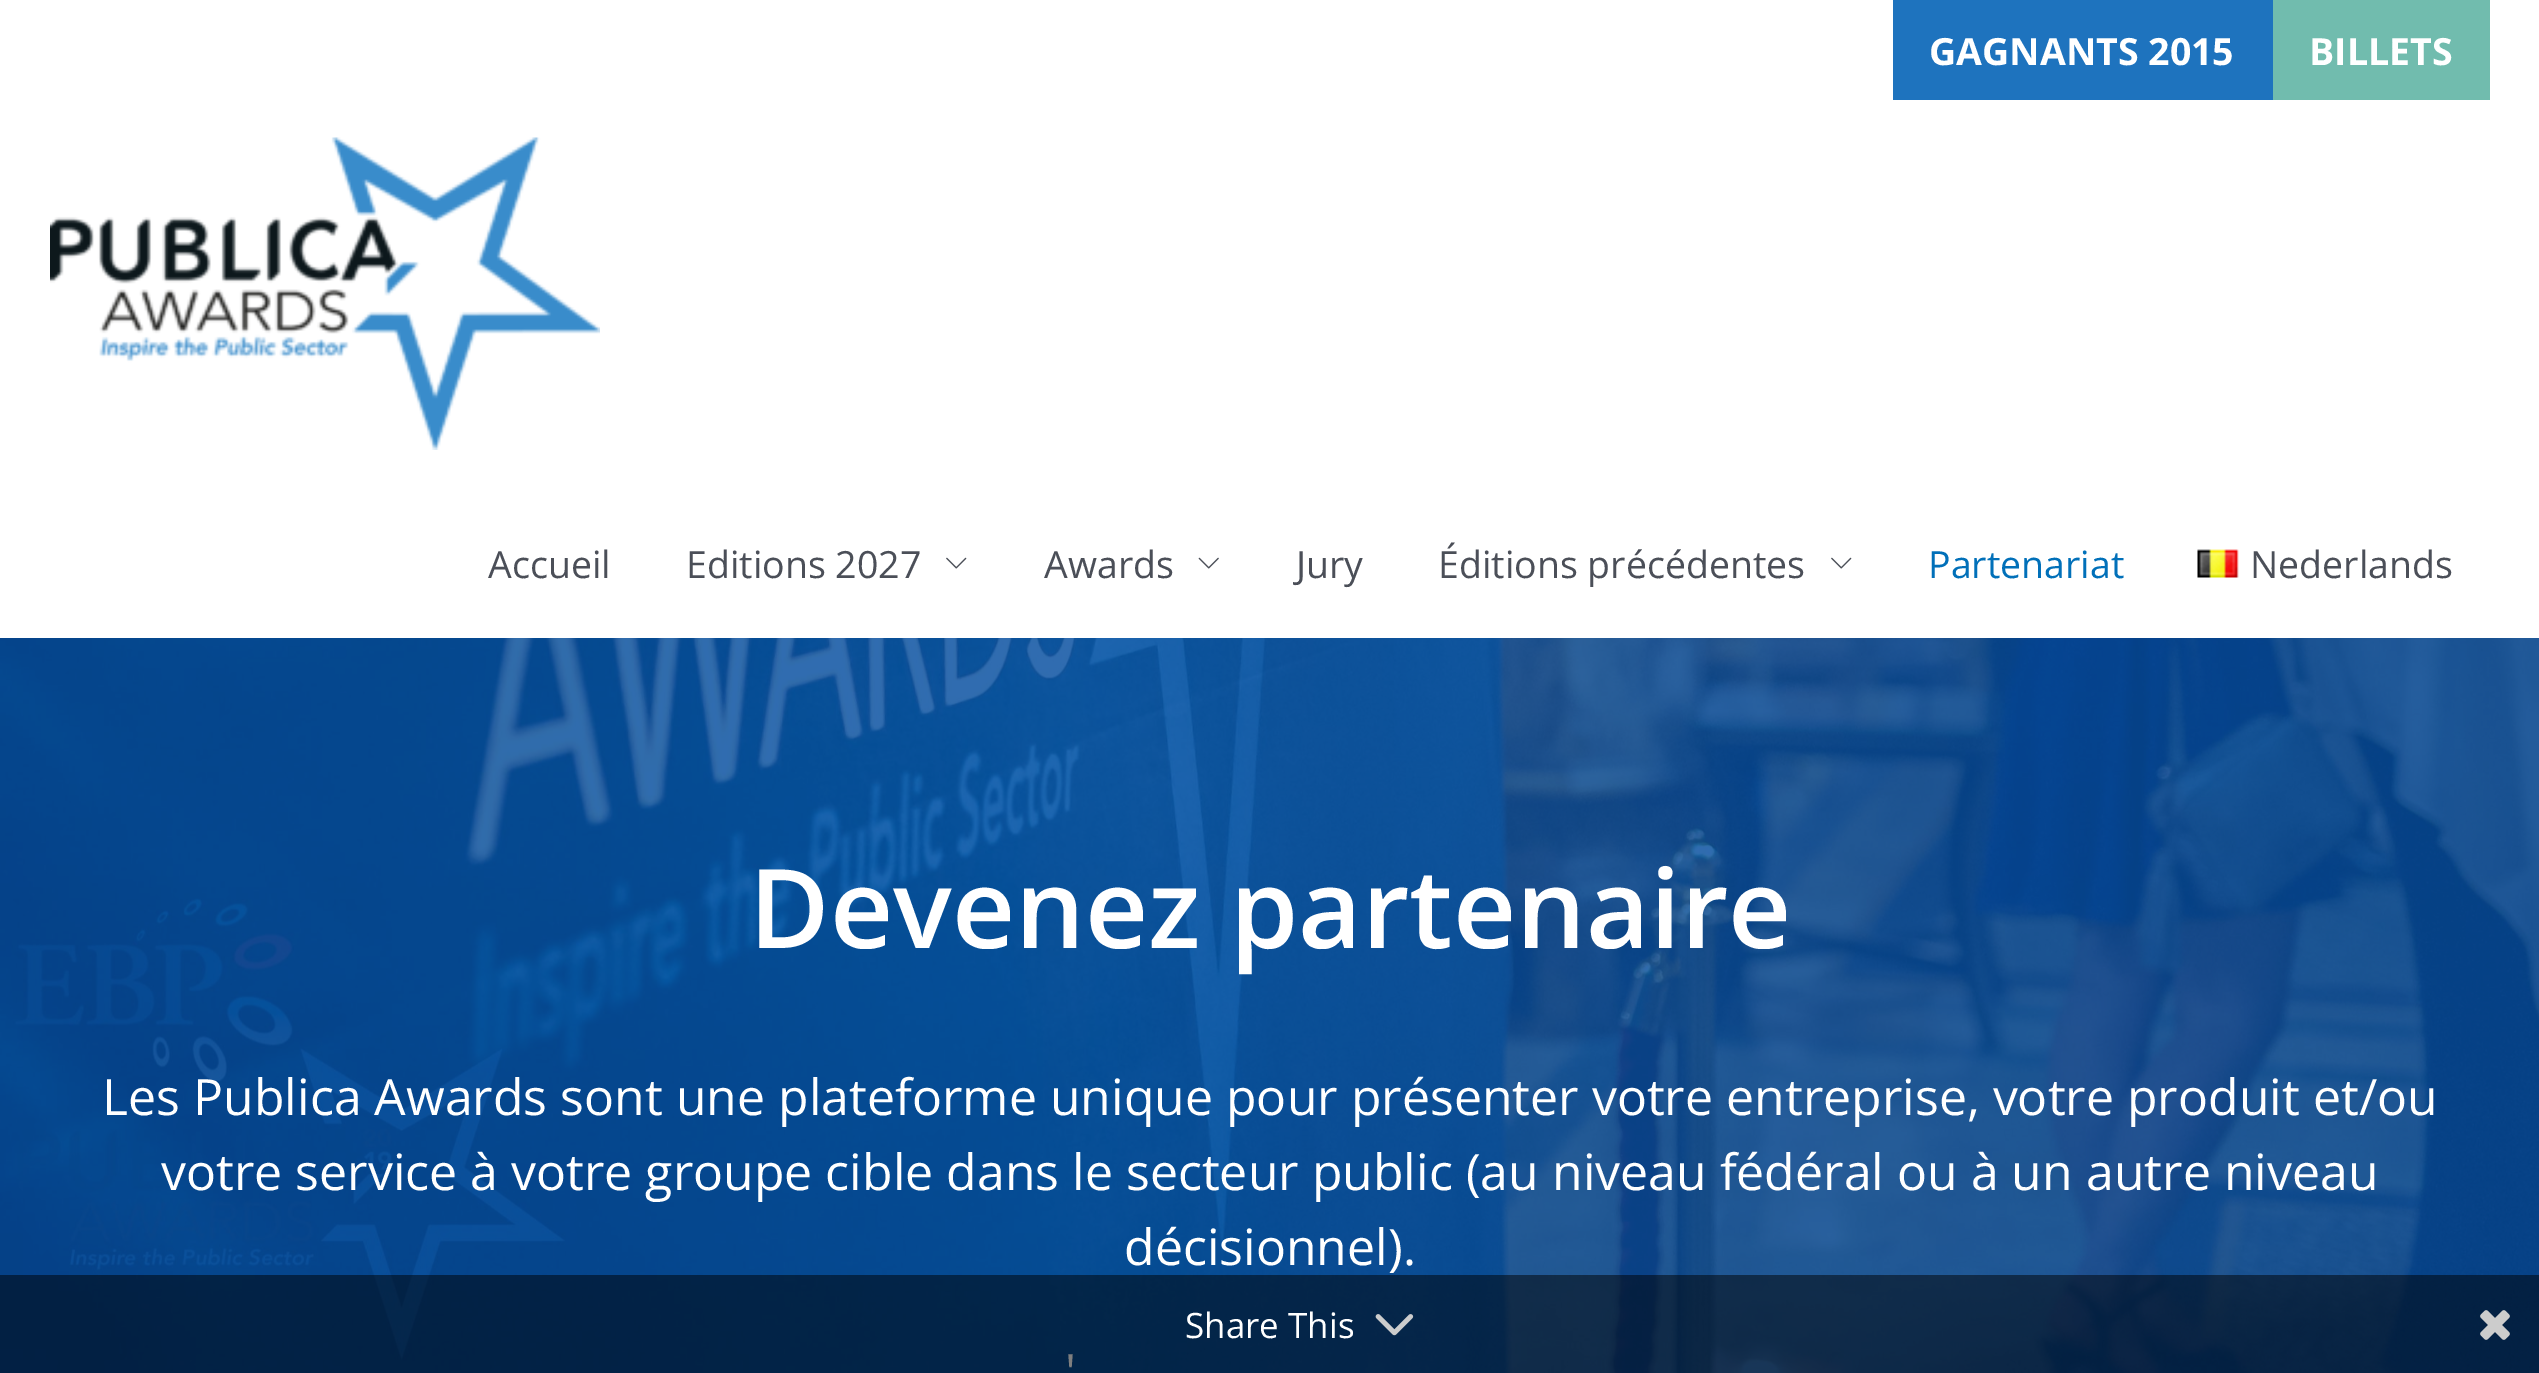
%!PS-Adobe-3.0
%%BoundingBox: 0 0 2539 1373
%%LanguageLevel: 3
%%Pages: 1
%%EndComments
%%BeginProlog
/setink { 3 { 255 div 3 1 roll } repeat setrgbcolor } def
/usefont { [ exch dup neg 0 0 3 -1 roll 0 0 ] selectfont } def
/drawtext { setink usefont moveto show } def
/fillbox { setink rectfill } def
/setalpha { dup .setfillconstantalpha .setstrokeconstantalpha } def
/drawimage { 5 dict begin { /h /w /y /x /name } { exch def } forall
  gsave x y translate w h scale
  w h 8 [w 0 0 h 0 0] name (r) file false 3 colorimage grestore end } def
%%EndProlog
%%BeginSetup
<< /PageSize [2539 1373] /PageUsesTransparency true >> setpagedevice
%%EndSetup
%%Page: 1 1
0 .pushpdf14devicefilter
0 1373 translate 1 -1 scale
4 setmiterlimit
0 0 2539 1373 255 255 255 fillbox
1893 0 380 100 30 115 190 fillbox
(GAGNANTS 2015) 1929 65 /OpenSans-Bold 37.5 255 255 255 drawtext
2273 0 217 100 113 188 174 fillbox
(BILLETS) 2309 65 /OpenSans-Bold 37.5 255 255 255 drawtext
(assets/img1.rgb) 50 137 550 313 drawimage
(Accueil) 488 578 /OpenSans-Regular 37.5 75 79 88 drawtext
(Editions 2027) 686 578 /OpenSans-Regular 37.5 75 79 88 drawtext
(assets/img2.rgb) 946 557 21 12 drawimage
(Awards) 1044 578 /OpenSans-Regular 37.5 75 79 88 drawtext
(assets/img3.rgb) 1198 557 21 12 drawimage
(Jury) 1296 578 /OpenSans-Regular 37.5 75 79 88 drawtext
(Éditions précédentes) 1438 578 /OpenSans-Regular 37.5 75 79 88 drawtext
(assets/img2.rgb) 1831 557 21 12 drawimage
(Partenariat) 1928 578 /OpenSans-Regular 37.5 1 112 185 drawtext
(assets/img4.rgb) 2197 549 42 29 drawimage
(Nederlands) 2250 578 /OpenSans-Regular 37.5 75 79 88 drawtext
(assets/img5.rgb) 0 638 2539 735 drawimage
(Devenez partenaire) 749 948 /OpenSans-SemiBold 110 255 255 255 drawtext
(Les Publica Awards sont une plateforme unique pour présenter votre entreprise, votre produit et/ou) 102 1115 /OpenSans-Regular 50 255 255 255 drawtext
(votre service à votre groupe cible dans le secteur public \(au niveau fédéral ou à un autre niveau) 161 1190 /OpenSans-Regular 50 255 255 255 drawtext
(décisionnel\).) 1124 1265 /OpenSans-Regular 50 255 255 255 drawtext
(') 1065 1390 /OpenSans-Regular 50 255 255 255 drawtext
0.5 setalpha
0 1275 2539 98 0 0 0 fillbox
1 setalpha
(Share This) 1185 1338 /OpenSans-Regular 35 255 255 255 drawtext
(assets/img6.rgb) 1375 1314 39 22 drawimage
(assets/img7.rgb) 2480 1310 30 30 drawimage
.poppdf14devicefilter showpage
%%EOF
